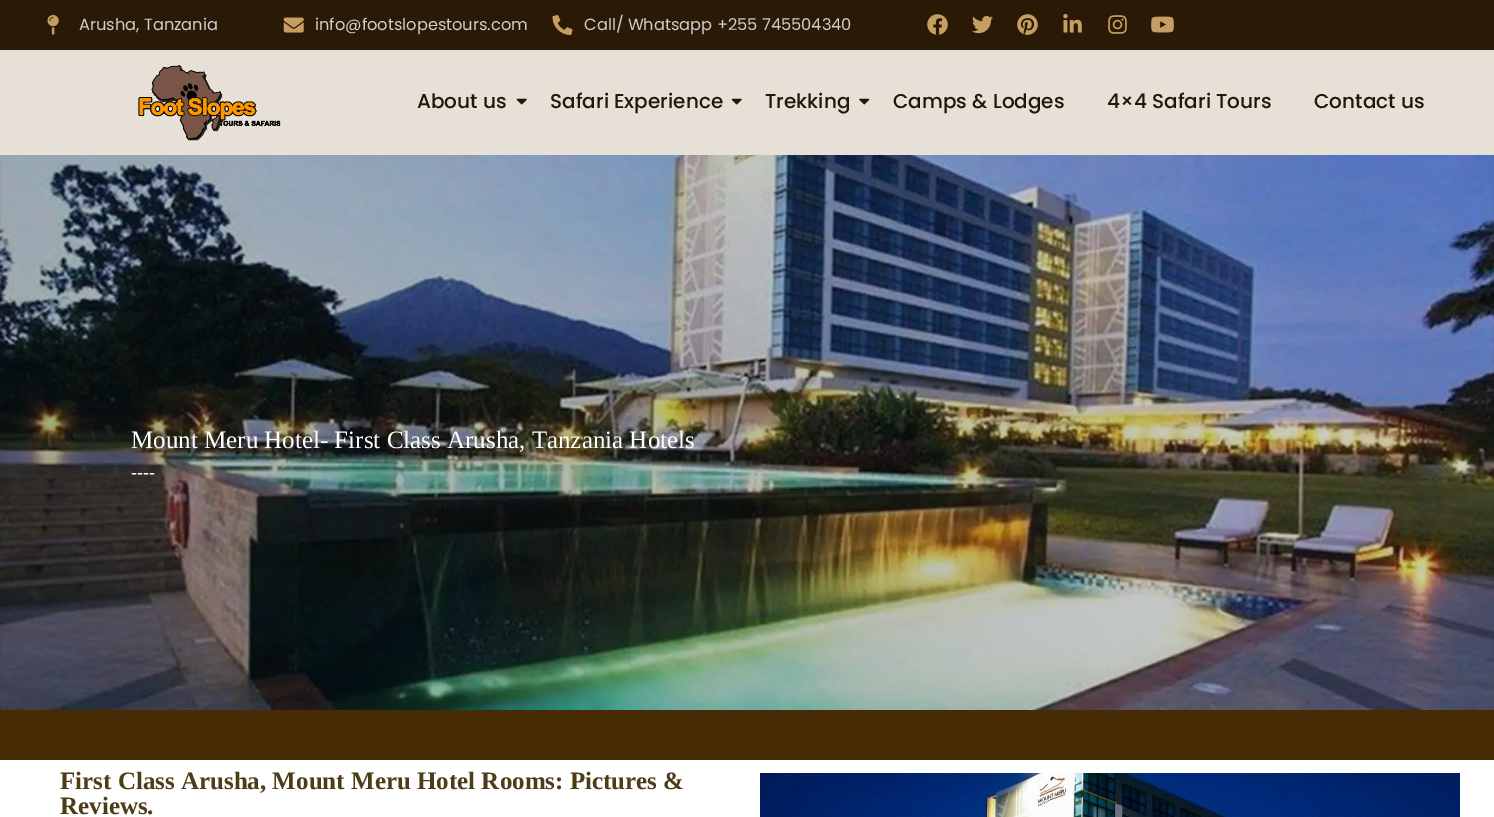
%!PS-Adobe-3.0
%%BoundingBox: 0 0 1494 817
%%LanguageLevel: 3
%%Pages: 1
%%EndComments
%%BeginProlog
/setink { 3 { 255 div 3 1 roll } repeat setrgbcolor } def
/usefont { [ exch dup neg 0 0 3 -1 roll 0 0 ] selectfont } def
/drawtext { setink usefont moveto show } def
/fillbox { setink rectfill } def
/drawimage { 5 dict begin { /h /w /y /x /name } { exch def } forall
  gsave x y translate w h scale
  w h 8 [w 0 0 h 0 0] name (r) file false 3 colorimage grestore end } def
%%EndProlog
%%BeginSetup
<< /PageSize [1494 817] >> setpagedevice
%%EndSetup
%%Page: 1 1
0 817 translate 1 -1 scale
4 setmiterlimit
0 0 1494 817 255 255 255 fillbox
0 0 1494 50 42 25 4 fillbox
(assets/img1.rgb) 47 15 12 20 drawimage
(Arusha, Tanzania) 79 30 /Poppins-Regular 16.25 206 206 205 drawtext
(assets/img2.rgb) 283 17 21 16 drawimage
(info@footslopestours.com) 315 30 /Poppins-Regular 16.25 206 206 205 drawtext
(assets/img3.rgb) 552 15 21 20 drawimage
(Call/ Whatsapp +255 745504340) 584 30 /Poppins-Regular 16.25 206 206 205 drawtext
(assets/img4.rgb) 927 14 21 21 drawimage
(assets/img5.rgb) 972 15 21 19 drawimage
(assets/img6.rgb) 1017 14 21 21 drawimage
(assets/img7.rgb) 1063 13 19 20 drawimage
(assets/img8.rgb) 1108 15 19 19 drawimage
(assets/img9.rgb) 1151 16 23 17 drawimage
0 50 1494 105 230 224 215 fillbox
(assets/img10.rgb) 138 65 143 76 drawimage
(About us) 417 108 /Poppins-Medium 20 36 23 4 drawtext
(assets/img11.rgb) 516 98 11 7 drawimage
(Safari Experience) 550 108 /Poppins-Medium 20 36 23 4 drawtext
(assets/img11.rgb) 731 98 11 7 drawimage
(Trekking) 765 108 /Poppins-Medium 20 36 23 4 drawtext
(assets/img12.rgb) 859 98 11 7 drawimage
(Camps & Lodges) 893 108 /Poppins-Medium 20 36 23 4 drawtext
(4×4 Safari Tours) 1107 108 /Poppins-Medium 20 36 23 4 drawtext
(Contact us) 1314 108 /Poppins-Medium 20 36 23 4 drawtext
(assets/img13.rgb) 0 155 1494 555 drawimage
(Mount Meru Hotel- First Class Arusha, Tanzania Hotels) 131 448 /LiberationSerif-Regular 25 255 255 255 drawtext
(----) 131 478 /LiberationSerif-Regular 18 255 255 255 drawtext
0 710 1494 50 70 43 4 fillbox
(First Class Arusha, Mount Meru Hotel Rooms: Pictures &) 60 789 /LiberationSerif-Bold 25 76 60 23 drawtext
(Reviews.) 60 814 /LiberationSerif-Bold 25 76 60 23 drawtext
(assets/img14.rgb) 760 773 700 44 drawimage
showpage
%%EOF
